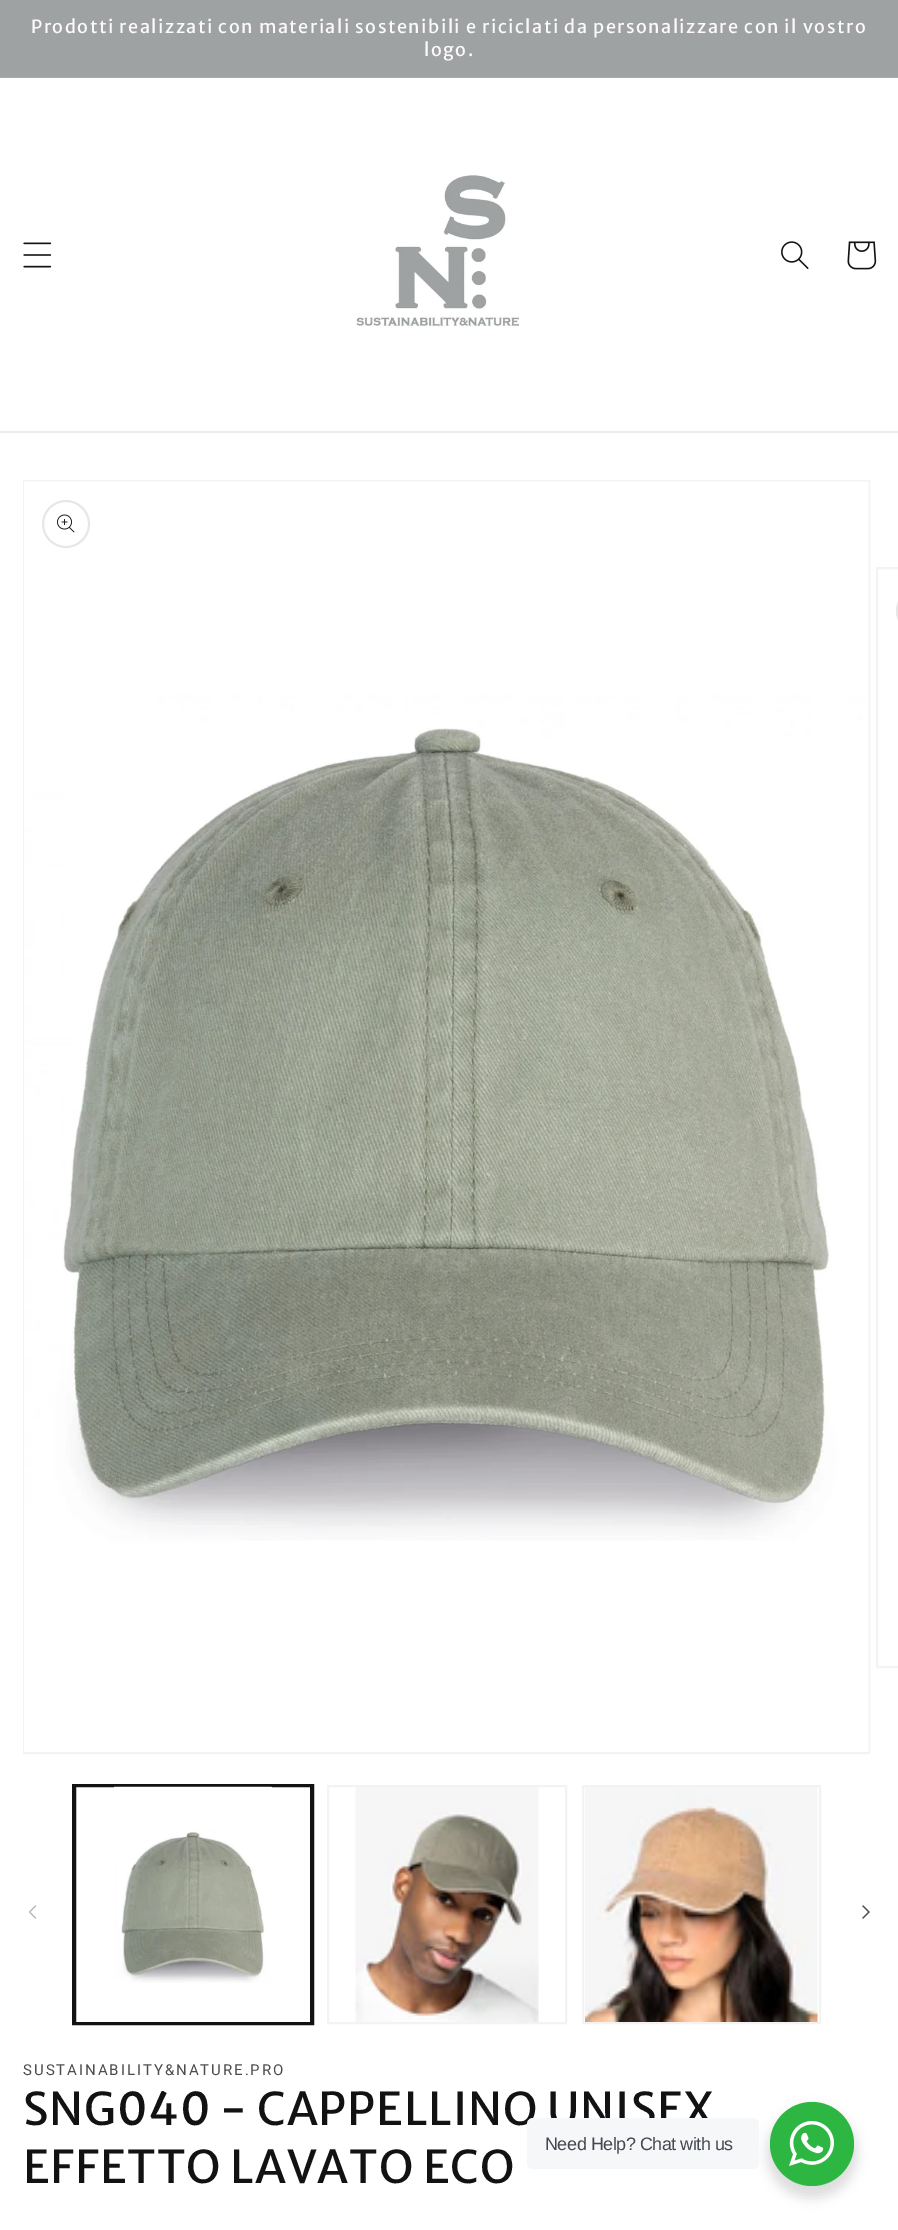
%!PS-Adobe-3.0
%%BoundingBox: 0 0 898 2230
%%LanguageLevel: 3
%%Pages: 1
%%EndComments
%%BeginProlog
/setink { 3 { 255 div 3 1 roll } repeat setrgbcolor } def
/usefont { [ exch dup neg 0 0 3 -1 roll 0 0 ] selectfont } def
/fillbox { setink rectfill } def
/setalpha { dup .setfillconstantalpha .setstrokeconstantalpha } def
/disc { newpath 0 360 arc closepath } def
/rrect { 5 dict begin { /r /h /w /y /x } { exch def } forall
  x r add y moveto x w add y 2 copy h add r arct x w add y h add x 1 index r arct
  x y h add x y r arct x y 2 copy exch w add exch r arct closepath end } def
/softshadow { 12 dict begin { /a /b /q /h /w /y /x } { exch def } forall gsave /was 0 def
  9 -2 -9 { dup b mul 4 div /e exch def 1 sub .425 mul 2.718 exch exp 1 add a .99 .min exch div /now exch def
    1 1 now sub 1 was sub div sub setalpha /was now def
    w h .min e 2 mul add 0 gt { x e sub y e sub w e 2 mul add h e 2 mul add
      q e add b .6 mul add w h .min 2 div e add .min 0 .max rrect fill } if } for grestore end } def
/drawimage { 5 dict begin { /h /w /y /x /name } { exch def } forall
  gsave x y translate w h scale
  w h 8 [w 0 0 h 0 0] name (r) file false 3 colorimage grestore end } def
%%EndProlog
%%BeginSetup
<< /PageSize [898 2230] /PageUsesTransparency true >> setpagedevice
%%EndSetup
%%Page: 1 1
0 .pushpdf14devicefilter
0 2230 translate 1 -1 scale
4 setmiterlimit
0 0 898 2230 255 255 255 fillbox
0 0 898 77 158 162 163 fillbox
0 77 898 1 166 169 170 fillbox
/MerriweatherSans-Regular 18 usefont
253 249 249 setink
31 33 moveto 1.5 0 (Prodotti realizzati con materiali sostenibili e riciclati da personalizzare con il vostro) ashow
424 56 moveto 1.5 0 (logo.) ashow
0 431 898 2 236 236 236 fillbox
(assets/img1.rgb) 23 242 29 26 drawimage
(assets/img2.rgb) 356 175 163 152 drawimage
(assets/img3.rgb) 781 241 28 28 drawimage
(assets/img4.rgb) 847 241 30 29 drawimage
243 243 243 setink
2 setlinewidth
24 481 845 1272 rectstroke
(assets/img5.rgb) 24 481 845 1271 drawimage
231 231 231 setink
66 524 23 disc stroke
(assets/img6.rgb) 57 514 18 19 drawimage
243 243 243 setink
877 568 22 1099 rectstroke
231 231 231 setink
897 588 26 46 23 rrect stroke
(assets/img7.rgb) 29 1905 8 14 drawimage
18 18 18 setink
73 1785 240 239 rectstroke
75 1786 236 237 rectstroke
(assets/img8.rgb) 114 1786 158 197 drawimage
243 243 243 setink
328 1786 238 237 rectstroke
(assets/img9.rgb) 355 1787 184 235 drawimage
583 1786 237 237 rectstroke
(assets/img10.rgb) 585 1787 233 235 drawimage
(assets/img11.rgb) 862 1905 8 14 drawimage
/Roboto-Regular 15 usefont
77 77 77 setink
23 2075 moveto 1.95 0 (SUSTAINABILITY&NATURE.PRO) ashow
/MerriweatherSans-Regular 45 usefont
18 18 18 setink
23 2125 moveto 0.9 0 (SNG040 - CAPPELLINO UNISEX) ashow
23 2183 moveto 0.9 0 (EFFETTO LAVATO ECO) ashow
0 0 0 setink
767 2108 90 90 45 6 0.14 softshadow
245 247 249 setink
527 2118 232 51 6 rrect fill
/LiberationSans-Regular 18 usefont
67 71 78 setink
545 2150 moveto -0.5 0 (Need Help? Chat with us) ashow
45 183 66 setink
812 2144 42 disc fill
(assets/img12.rgb) 789 2121 45 45 drawimage
.poppdf14devicefilter showpage
%%EOF
